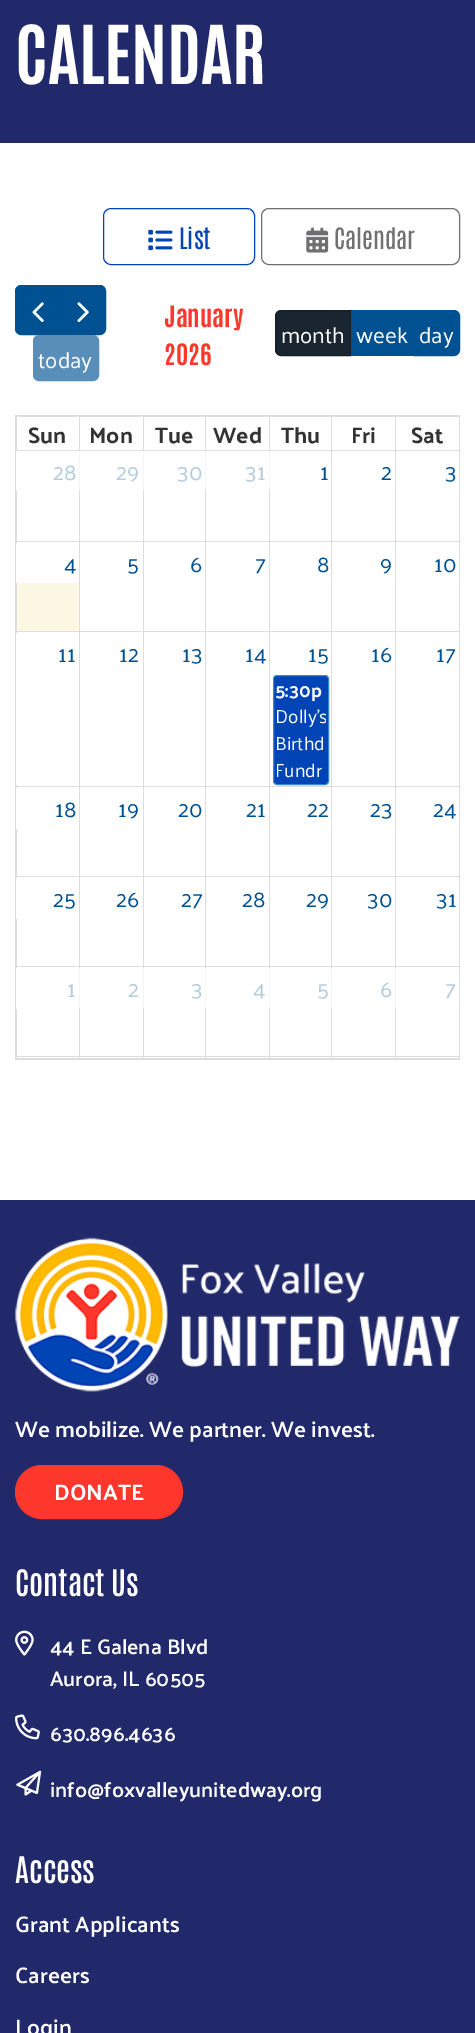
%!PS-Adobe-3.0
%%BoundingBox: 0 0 475 2033
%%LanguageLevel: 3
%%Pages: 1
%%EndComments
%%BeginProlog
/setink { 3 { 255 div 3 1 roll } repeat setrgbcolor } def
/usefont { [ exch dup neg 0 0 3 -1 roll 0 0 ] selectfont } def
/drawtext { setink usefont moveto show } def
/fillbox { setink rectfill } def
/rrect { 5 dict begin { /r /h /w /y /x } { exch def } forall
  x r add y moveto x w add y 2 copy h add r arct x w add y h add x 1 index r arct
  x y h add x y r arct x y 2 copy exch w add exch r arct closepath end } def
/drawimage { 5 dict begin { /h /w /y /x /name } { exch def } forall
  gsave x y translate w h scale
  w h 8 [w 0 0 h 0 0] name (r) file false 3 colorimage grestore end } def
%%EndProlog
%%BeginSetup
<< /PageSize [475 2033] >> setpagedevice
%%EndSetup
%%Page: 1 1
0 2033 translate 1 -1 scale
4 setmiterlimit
0 0 475 2033 255 255 255 fillbox
0 0 475 143 33 41 107 fillbox
(CALENDAR) 15 84 /Antonio-Bold 69 255 255 255 drawtext
0 68 181 setink
103.5 208.5 151 56 7.5 rrect stroke
(assets/img1.rgb) 148 229 25 22 drawimage
(List) 179 249 /Antonio-Regular 25 0 68 181 drawtext
112 112 114 setink
261.5 208.5 198 56 7.5 rrect stroke
(assets/img2.rgb) 306 227 23 26 drawimage
(Calendar) 334 249 /Antonio-Regular 25 112 112 114 drawtext
(January) 164 327 /Antonio-Bold 25 253 55 44 drawtext
(2026) 164 365 /Antonio-Bold 25 253 55 44 drawtext
26 37 47 setink
281 310.5 moveto 350.5 310.5 lineto 350.5 355.5 lineto 281 355.5 lineto 278 355.5 275.5 353 275.5 350 curveto 275.5 316 lineto 275.5 313 278 310.5 281 310.5 curveto closepath gsave fill grestore
21 30 39 setink
stroke
(month) 281 343 /Palanquin-Regular 22.5 255 255 255 drawtext
351 310 62 46 0 81 145 fillbox
(week) 356 343 /Palanquin-Regular 22.5 255 255 255 drawtext
0 81 145 setink
413.5 310.5 moveto 454 310.5 lineto 457 310.5 459.5 313 459.5 316 curveto 459.5 350 lineto 459.5 353 457 355.5 454 355.5 curveto 413.5 355.5 lineto closepath gsave fill grestore
stroke
(day) 419 343 /Palanquin-Regular 22.5 255 255 255 drawtext
0 81 145 setink
21 285.5 moveto 60.5 285.5 lineto 60.5 334.5 lineto 21 334.5 lineto 18 334.5 15.5 332 15.5 329 curveto 15.5 291 lineto 15.5 288 18 285.5 21 285.5 curveto closepath gsave fill grestore
stroke
(assets/img3.rgb) 32 302 12 20 drawimage
60.5 285.5 moveto 100 285.5 lineto 103 285.5 105.5 288 105.5 291 curveto 105.5 329 lineto 105.5 332 103 334.5 100 334.5 curveto 60.5 334.5 lineto closepath gsave fill grestore
stroke
(assets/img4.rgb) 77 302 12 20 drawimage
89 142 184 setink
33.5 335.5 65 45 5.5 rrect gsave fill grestore
stroke
(today) 38 368 /Palanquin-Regular 22.5 255 255 255 drawtext
15 1059 445 1 221 221 221 fillbox
15 415 445 1 221 221 221 fillbox
15 450 445 1 221 221 221 fillbox
459 450 1 609 221 221 221 fillbox
459 415 1 36 221 221 221 fillbox
15 1058 445 1 221 221 221 fillbox
15 450 1 609 221 221 221 fillbox
15 415 1 36 221 221 221 fillbox
395 416 65 1 221 221 221 fillbox
395 416 1 35 221 221 221 fillbox
331 416 65 1 221 221 221 fillbox
331 416 1 35 221 221 221 fillbox
269 416 64 1 221 221 221 fillbox
269 416 1 35 221 221 221 fillbox
205 416 65 1 221 221 221 fillbox
205 416 1 35 221 221 221 fillbox
143 416 63 1 221 221 221 fillbox
143 416 1 35 221 221 221 fillbox
79 416 65 1 221 221 221 fillbox
79 416 1 35 221 221 221 fillbox
16 416 64 1 221 221 221 fillbox
16 416 1 35 221 221 221 fillbox
(Sun) 28 443 /Palanquin-Bold 22.5 51 51 51 drawtext
(Mon) 89 443 /Palanquin-Bold 22.5 51 51 51 drawtext
(Tue) 155 443 /Palanquin-Bold 22.5 51 51 51 drawtext
(Wed) 213 443 /Palanquin-Bold 22.5 51 51 51 drawtext
(Thu) 281 443 /Palanquin-Bold 22.5 51 51 51 drawtext
(Fri) 351 443 /Palanquin-Bold 22.5 51 51 51 drawtext
(Sat) 411 443 /Palanquin-Bold 22.5 51 51 51 drawtext
395 541 65 1 221 221 221 fillbox
395 451 1 92 221 221 221 fillbox
331 541 65 1 221 221 221 fillbox
331 451 1 92 221 221 221 fillbox
269 541 64 1 221 221 221 fillbox
269 493 1 50 221 221 221 fillbox
205 541 65 1 221 221 221 fillbox
205 493 1 50 221 221 221 fillbox
143 541 63 1 221 221 221 fillbox
143 493 1 50 221 221 221 fillbox
79 541 65 1 221 221 221 fillbox
79 493 1 50 221 221 221 fillbox
16 541 64 1 221 221 221 fillbox
16 491 1 52 221 221 221 fillbox
79 451 1 40 245 245 245 fillbox
143 451 1 40 245 245 245 fillbox
205 451 1 40 245 245 245 fillbox
269 451 1 40 245 245 245 fillbox
(28) 53 480 /Palanquin-Regular 22.5 179 203 222 drawtext
(29) 116 480 /Palanquin-Regular 22.5 179 203 222 drawtext
(30) 177 480 /Palanquin-Regular 22.5 179 203 222 drawtext
(31) 245 480 /Palanquin-Regular 22.5 179 203 222 drawtext
(1) 320 480 /Palanquin-Regular 22.5 0 81 145 drawtext
(2) 381 480 /Palanquin-Regular 22.5 0 81 145 drawtext
(3) 445 480 /Palanquin-Regular 22.5 0 81 145 drawtext
79 490 1 3 221 221 221 fillbox
143 490 1 3 221 221 221 fillbox
205 490 1 3 221 221 221 fillbox
269 490 1 3 221 221 221 fillbox
17 583 62 48 252 248 227 fillbox
395 631 65 1 221 221 221 fillbox
395 541 1 92 221 221 221 fillbox
331 631 65 1 221 221 221 fillbox
331 541 1 92 221 221 221 fillbox
269 631 64 1 221 221 221 fillbox
269 541 1 92 221 221 221 fillbox
205 631 65 1 221 221 221 fillbox
205 541 1 92 221 221 221 fillbox
143 631 63 1 221 221 221 fillbox
143 541 1 92 221 221 221 fillbox
79 631 65 1 221 221 221 fillbox
79 541 1 92 221 221 221 fillbox
16 631 64 1 221 221 221 fillbox
16 541 1 92 221 221 221 fillbox
16 543 1 40 255 255 255 fillbox
(4) 64 572 /Palanquin-Regular 22.5 0 81 145 drawtext
(5) 127 572 /Palanquin-Regular 22.5 0 81 145 drawtext
(6) 190 572 /Palanquin-Regular 22.5 0 81 145 drawtext
(7) 255 572 /Palanquin-Regular 22.5 0 81 145 drawtext
(8) 317 572 /Palanquin-Regular 22.5 0 81 145 drawtext
(9) 380 572 /Palanquin-Regular 22.5 0 81 145 drawtext
(10) 434 572 /Palanquin-Regular 22.5 0 81 145 drawtext
395 786 65 1 221 221 221 fillbox
395 631 1 157 221 221 221 fillbox
331 786 65 1 221 221 221 fillbox
331 631 1 157 221 221 221 fillbox
269 786 64 1 221 221 221 fillbox
269 631 1 157 221 221 221 fillbox
205 786 65 1 221 221 221 fillbox
205 631 1 157 221 221 221 fillbox
143 786 63 1 221 221 221 fillbox
143 631 1 157 221 221 221 fillbox
79 786 65 1 221 221 221 fillbox
79 631 1 157 221 221 221 fillbox
16 786 64 1 221 221 221 fillbox
16 631 1 157 221 221 221 fillbox
16 633 1 152 255 255 255 fillbox
(11) 58 662 /Palanquin-Regular 22.5 0 81 145 drawtext
(12) 119 662 /Palanquin-Regular 22.5 0 81 145 drawtext
(13) 182 662 /Palanquin-Regular 22.5 0 81 145 drawtext
(14) 245 662 /Palanquin-Regular 22.5 0 81 145 drawtext
(15) 308 662 /Palanquin-Regular 22.5 0 81 145 drawtext
(16) 371 662 /Palanquin-Regular 22.5 0 81 145 drawtext
(17) 436 662 /Palanquin-Regular 22.5 0 81 145 drawtext
0 68 181 setink
273.5 675.5 55 109 3.5 rrect gsave fill grestore
55 136 216 setink
stroke
(5:30p) 275 697 /Palanquin-Bold 19 255 255 255 drawtext
gsave
275 676 51 108 rectclip
(Dolly's) 275 723 /Palanquin-Regular 19 255 255 255 drawtext
grestore
(Birthd) 275 750 /Palanquin-Regular 19 255 255 255 drawtext
(Fundr) 275 777 /Palanquin-Regular 19 255 255 255 drawtext
395 876 65 1 221 221 221 fillbox
395 788 1 90 221 221 221 fillbox
331 876 65 1 221 221 221 fillbox
331 788 1 90 221 221 221 fillbox
269 876 64 1 221 221 221 fillbox
269 788 1 90 221 221 221 fillbox
205 876 65 1 221 221 221 fillbox
205 788 1 90 221 221 221 fillbox
143 876 63 1 221 221 221 fillbox
143 788 1 90 221 221 221 fillbox
79 876 65 1 221 221 221 fillbox
79 788 1 90 221 221 221 fillbox
16 876 64 1 221 221 221 fillbox
16 829 1 49 221 221 221 fillbox
(18) 55 817 /Palanquin-Regular 22.5 0 81 145 drawtext
(19) 118 817 /Palanquin-Regular 22.5 0 81 145 drawtext
(20) 178 817 /Palanquin-Regular 22.5 0 81 145 drawtext
(21) 246 817 /Palanquin-Regular 22.5 0 81 145 drawtext
(22) 307 817 /Palanquin-Regular 22.5 0 81 145 drawtext
(23) 370 817 /Palanquin-Regular 22.5 0 81 145 drawtext
(24) 433 817 /Palanquin-Regular 22.5 0 81 145 drawtext
395 966 65 1 221 221 221 fillbox
395 878 1 90 221 221 221 fillbox
331 966 65 1 221 221 221 fillbox
331 878 1 90 221 221 221 fillbox
269 966 64 1 221 221 221 fillbox
269 878 1 90 221 221 221 fillbox
205 966 65 1 221 221 221 fillbox
205 878 1 90 221 221 221 fillbox
143 966 63 1 221 221 221 fillbox
143 878 1 90 221 221 221 fillbox
79 966 65 1 221 221 221 fillbox
79 878 1 90 221 221 221 fillbox
16 966 64 1 221 221 221 fillbox
16 919 1 49 221 221 221 fillbox
(25) 53 907 /Palanquin-Regular 22.5 0 81 145 drawtext
(26) 116 907 /Palanquin-Regular 22.5 0 81 145 drawtext
(27) 181 907 /Palanquin-Regular 22.5 0 81 145 drawtext
(28) 242 907 /Palanquin-Regular 22.5 0 81 145 drawtext
(29) 306 907 /Palanquin-Regular 22.5 0 81 145 drawtext
(30) 367 907 /Palanquin-Regular 22.5 0 81 145 drawtext
(31) 436 907 /Palanquin-Regular 22.5 0 81 145 drawtext
79 968 1 40 245 245 245 fillbox
143 968 1 40 245 245 245 fillbox
205 968 1 40 245 245 245 fillbox
269 968 1 40 245 245 245 fillbox
331 968 1 40 245 245 245 fillbox
395 968 1 40 245 245 245 fillbox
(1) 67 997 /Palanquin-Regular 22.5 179 203 222 drawtext
(2) 128 997 /Palanquin-Regular 22.5 179 203 222 drawtext
(3) 191 997 /Palanquin-Regular 22.5 179 203 222 drawtext
(4) 253 997 /Palanquin-Regular 22.5 179 203 222 drawtext
(5) 317 997 /Palanquin-Regular 22.5 179 203 222 drawtext
(6) 380 997 /Palanquin-Regular 22.5 179 203 222 drawtext
(7) 445 997 /Palanquin-Regular 22.5 179 203 222 drawtext
395 1056 65 1 221 221 221 fillbox
395 1008 1 50 221 221 221 fillbox
331 1056 65 1 221 221 221 fillbox
331 1008 1 50 221 221 221 fillbox
269 1056 64 1 221 221 221 fillbox
269 1008 1 50 221 221 221 fillbox
205 1056 65 1 221 221 221 fillbox
205 1008 1 50 221 221 221 fillbox
143 1056 63 1 221 221 221 fillbox
143 1008 1 50 221 221 221 fillbox
79 1056 65 1 221 221 221 fillbox
79 1008 1 50 221 221 221 fillbox
16 1056 64 1 221 221 221 fillbox
16 1009 1 49 221 221 221 fillbox
0 1200 475 833 33 41 107 fillbox
(assets/img5.rgb) 15 1237 445 155 drawimage
(We mobilize. We partner. We invest.) 15 1437 /Palanquin-SemiBold 22.5 255 255 255 drawtext
253 55 44 setink
15.5 1465.5 167 53 26.5 rrect gsave fill grestore
stroke
(DONATE) 54 1500 /Palanquin-Bold 22.5 255 255 255 drawtext
(Contact Us) 15 1596 /Antonio-SemiBold 31 255 255 255 drawtext
(assets/img6.rgb) 15 1630 19 26 drawimage
(44 E Galena Blvd) 50 1654 /Palanquin-SemiBold 21.25 255 255 255 drawtext
(Aurora, IL 60505) 50 1686 /Palanquin-SemiBold 21.25 255 255 255 drawtext
(assets/img7.rgb) 15 1714 25 26 drawimage
(630.896.4636) 50 1741 /Palanquin-SemiBold 21.25 255 255 255 drawtext
(assets/img8.rgb) 16 1770 26 26 drawimage
(info@foxvalleyunitedway.org) 50 1797 /Palanquin-SemiBold 21.25 255 255 255 drawtext
(Access) 15 1883 /Antonio-SemiBold 31 255 255 255 drawtext
(Grant Applicants) 15 1932 /Palanquin-SemiBold 22.5 255 255 255 drawtext
(Careers) 15 1983 /Palanquin-SemiBold 22.5 255 255 255 drawtext
(Login) 15 2035 /Palanquin-SemiBold 22.5 255 255 255 drawtext
showpage
%%EOF
